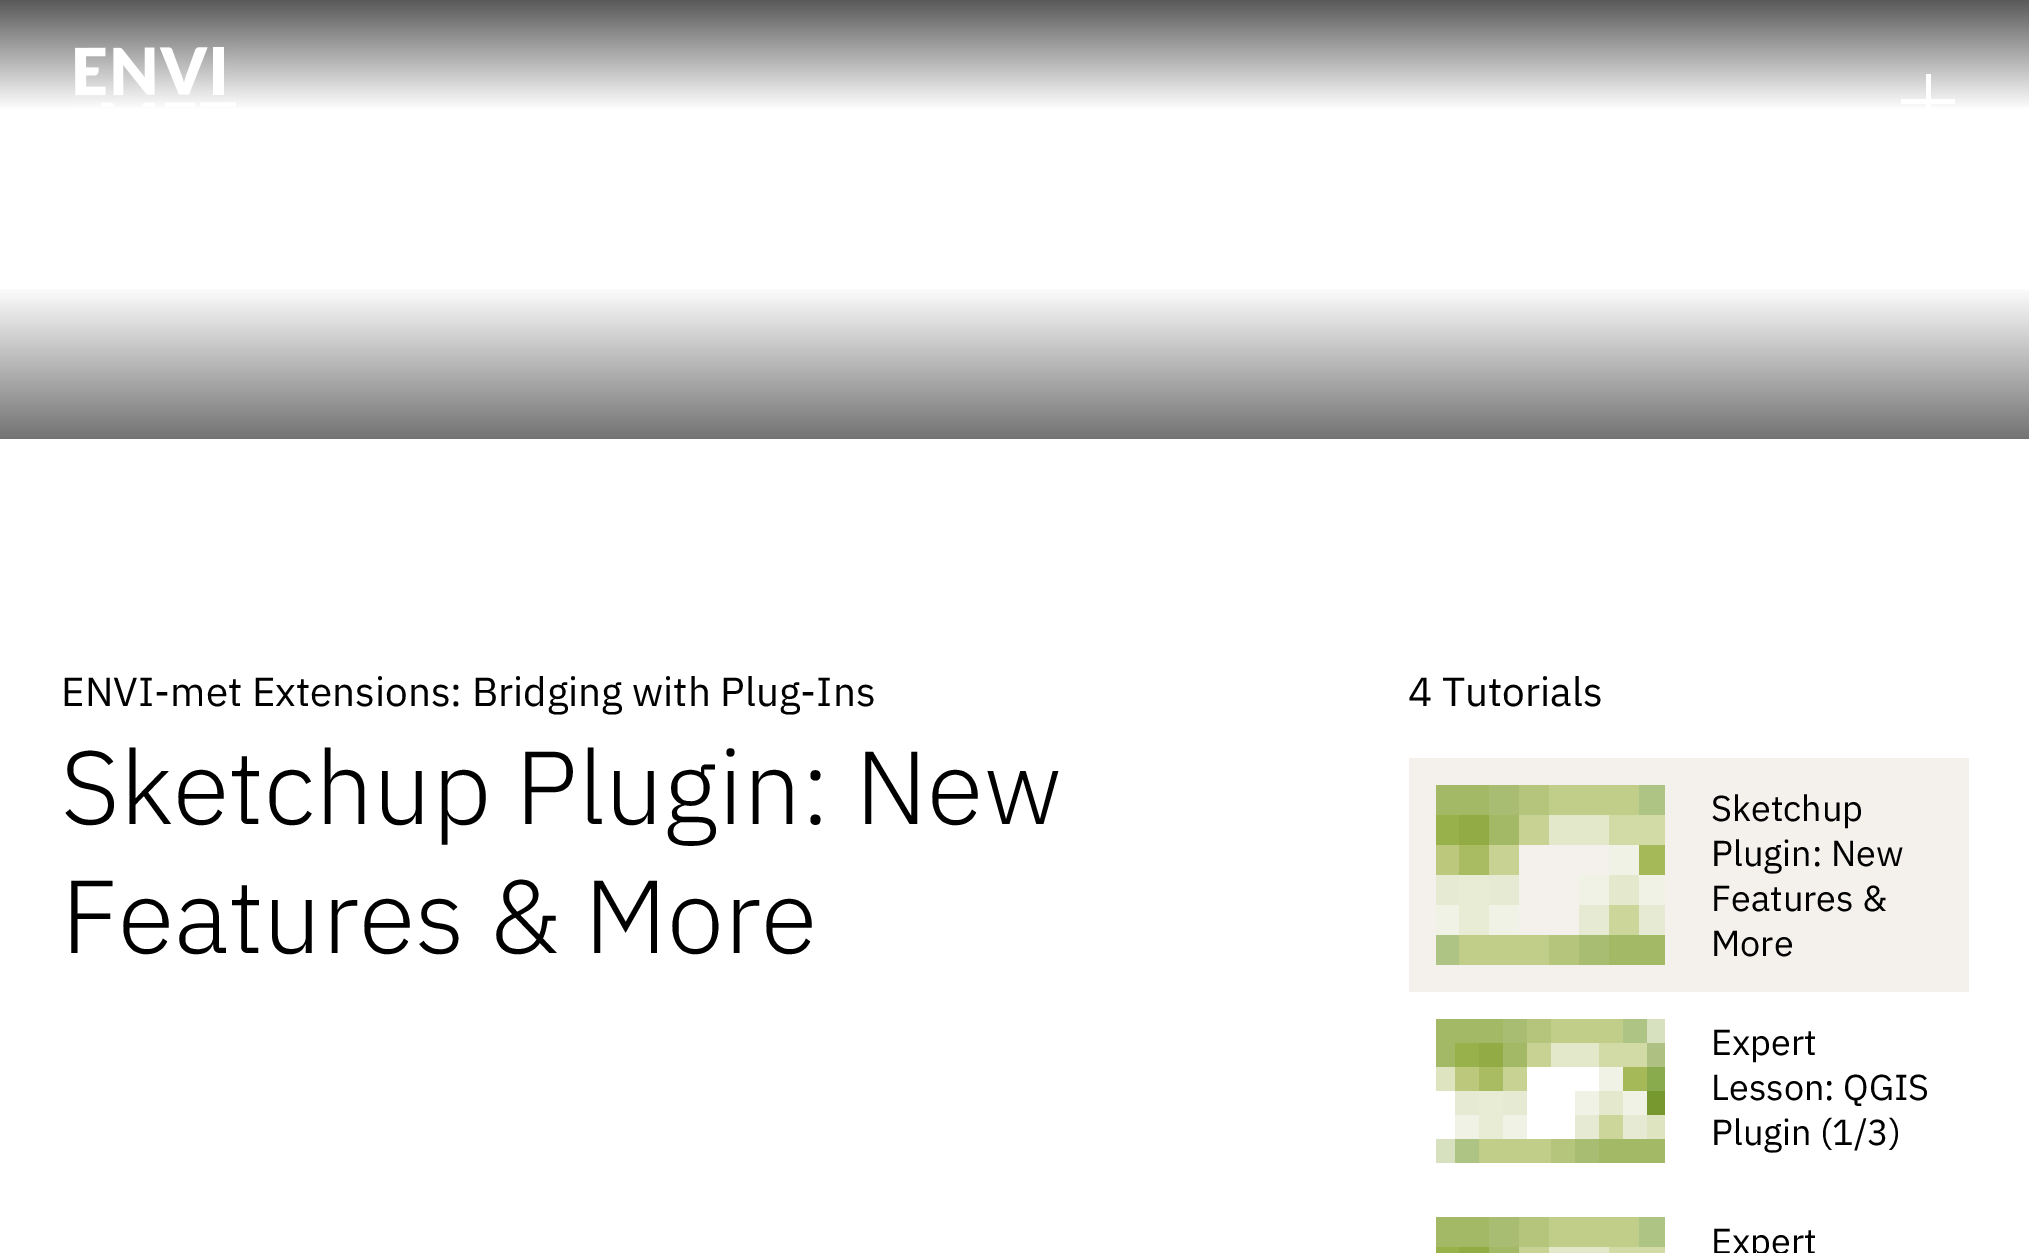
%!PS-Adobe-3.0
%%BoundingBox: 0 0 2029 1253
%%LanguageLevel: 3
%%Pages: 1
%%EndComments
%%BeginProlog
/setink { 3 { 255 div 3 1 roll } repeat setrgbcolor } def
/usefont { [ exch dup neg 0 0 3 -1 roll 0 0 ] selectfont } def
/drawtext { setink usefont moveto show } def
/fillbox { setink rectfill } def
/drawimage { 5 dict begin { /h /w /y /x /name } { exch def } forall
  gsave x y translate w h scale
  w h 8 [w 0 0 h 0 0] name (r) file false 3 colorimage grestore end } def
%%EndProlog
%%BeginSetup
<< /PageSize [2029 1253] >> setpagedevice
%%EndSetup
%%Page: 1 1
0 1253 translate 1 -1 scale
4 setmiterlimit
0 0 2029 1253 255 255 255 fillbox
gsave 0 0 moveto 2029 0 lineto 2029 108 lineto 0 108 lineto closepath clip newpath
<< /ShadingType 2 /ColorSpace /DeviceRGB /Coords [1015 110 1015 0] /Extend [true true] /Function << /FunctionType 2 /Domain [0 1] /C0 [1 1 1] /C1 [0.349 0.349 0.349] /N 1 >> >> shfill grestore
(assets/img1.rgb) 75 47 161 60 drawimage
1926 74 5 34 255 255 255 fillbox
1901 99 54 5 255 255 255 fillbox
gsave 0 289 moveto 2029 289 lineto 2029 439 lineto 0 439 lineto closepath clip newpath
<< /ShadingType 2 /ColorSpace /DeviceRGB /Coords [1015 286 1015 439] /Extend [true true] /Function << /FunctionType 2 /Domain [0 1] /C0 [1 1 1] /C1 [0.451 0.451 0.451] /N 1 >> >> shfill grestore
(ENVI-met Extensions: Bridging with Plug-Ins) 61 706 /IBMPlexSans-Regular 40.5 0 0 0 drawtext
(Sketchup Plugin: New) 61 824 /IBMPlexSans-Light 103.5 0 0 0 drawtext
(Features & More) 61 953 /IBMPlexSans-Light 103.5 0 0 0 drawtext
(4 Tutorials) 1408 706 /IBMPlexSans-Regular 40.5 0 0 0 drawtext
1409 758 560 234 244 241 237 fillbox
(assets/img2.rgb) 1436 785 229 180 drawimage
(Sketchup) 1711 821 /IBMPlexSans-Regular 36 0 0 0 drawtext
(Plugin: New) 1711 866 /IBMPlexSans-Regular 36 0 0 0 drawtext
(Features &) 1711 911 /IBMPlexSans-Regular 36 0 0 0 drawtext
(More) 1711 956 /IBMPlexSans-Regular 36 0 0 0 drawtext
(assets/img3.rgb) 1436 1019 229 144 drawimage
(Expert) 1711 1055 /IBMPlexSans-Regular 36 0 0 0 drawtext
(Lesson: QGIS) 1711 1100 /IBMPlexSans-Regular 36 0 0 0 drawtext
(Plugin \(1/3\)) 1711 1145 /IBMPlexSans-Regular 36 0 0 0 drawtext
(assets/img4.rgb) 1436 1217 229 36 drawimage
(Expert) 1711 1254 /IBMPlexSans-Regular 36 0 0 0 drawtext
showpage
%%EOF
